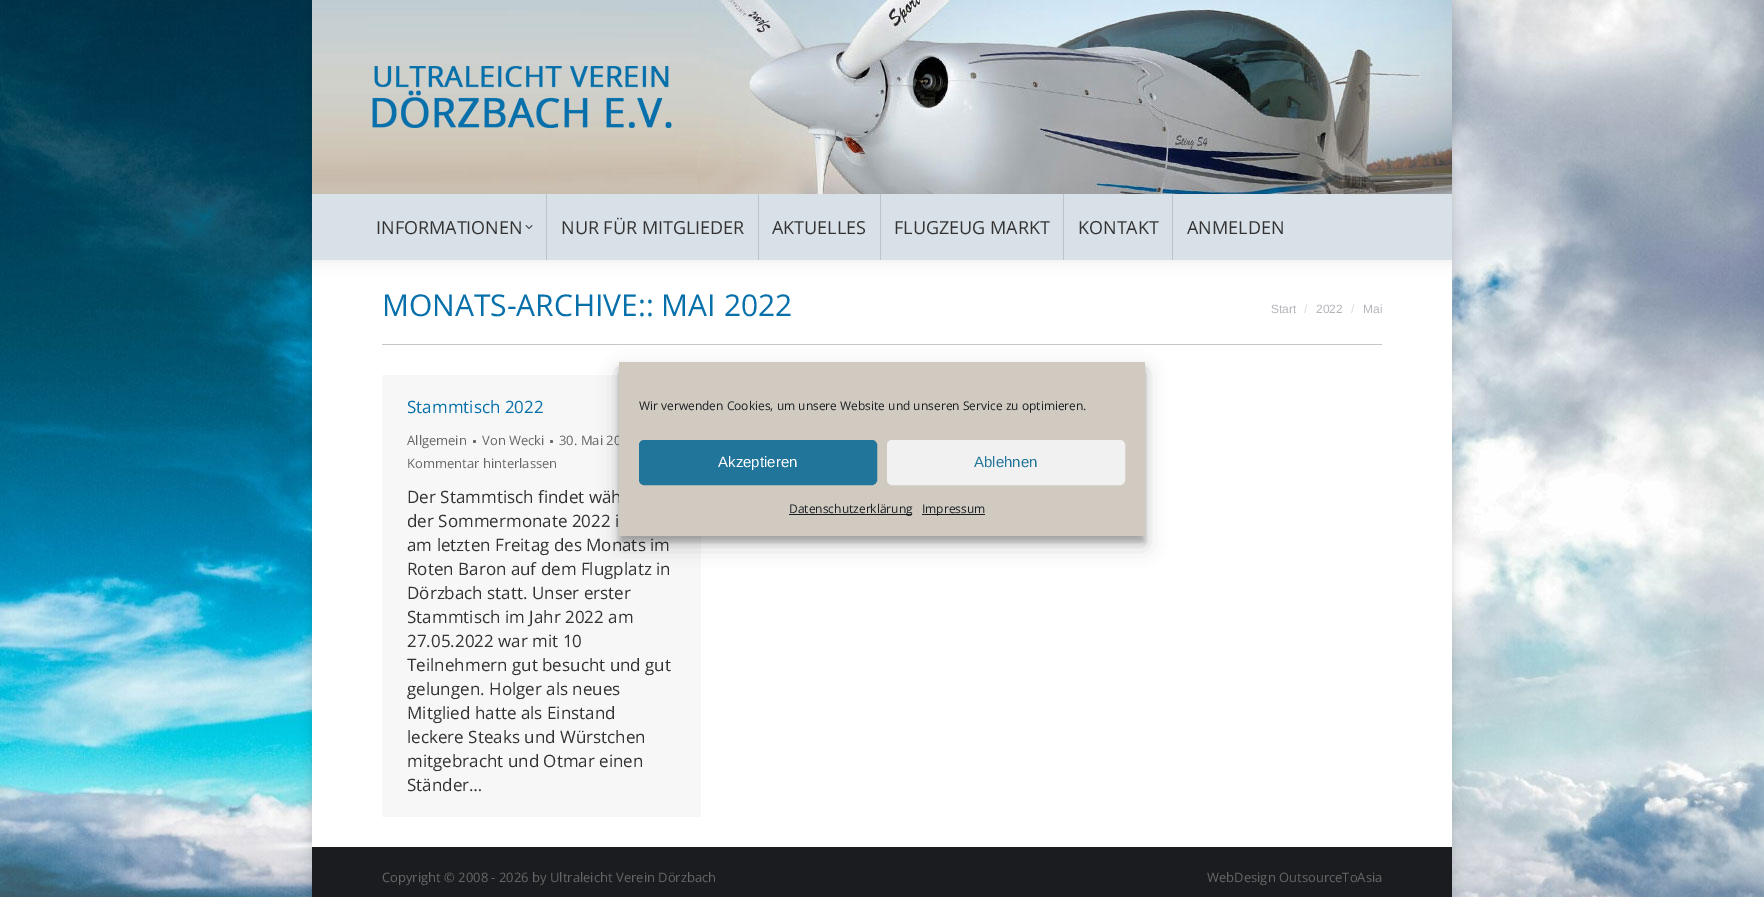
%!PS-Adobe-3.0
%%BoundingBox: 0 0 1764 897
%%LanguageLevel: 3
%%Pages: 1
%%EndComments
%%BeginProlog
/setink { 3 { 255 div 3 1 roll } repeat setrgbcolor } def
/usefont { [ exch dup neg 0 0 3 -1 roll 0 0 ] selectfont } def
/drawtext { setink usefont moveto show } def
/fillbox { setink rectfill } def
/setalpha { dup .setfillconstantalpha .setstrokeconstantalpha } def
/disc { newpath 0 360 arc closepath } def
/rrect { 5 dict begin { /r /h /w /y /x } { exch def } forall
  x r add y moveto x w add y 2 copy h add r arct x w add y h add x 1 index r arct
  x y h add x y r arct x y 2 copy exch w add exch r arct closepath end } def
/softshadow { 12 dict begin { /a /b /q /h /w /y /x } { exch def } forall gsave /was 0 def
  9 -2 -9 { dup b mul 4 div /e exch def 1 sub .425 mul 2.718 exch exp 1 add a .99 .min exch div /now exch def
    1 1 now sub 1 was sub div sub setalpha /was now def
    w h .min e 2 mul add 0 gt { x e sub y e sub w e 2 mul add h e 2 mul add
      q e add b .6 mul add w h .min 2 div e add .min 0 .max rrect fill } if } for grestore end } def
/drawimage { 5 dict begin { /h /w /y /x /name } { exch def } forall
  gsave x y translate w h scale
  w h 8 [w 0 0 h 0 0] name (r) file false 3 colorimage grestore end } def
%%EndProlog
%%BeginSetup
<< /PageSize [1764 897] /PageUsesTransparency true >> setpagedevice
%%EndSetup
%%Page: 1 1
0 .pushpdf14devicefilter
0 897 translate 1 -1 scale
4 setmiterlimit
0 0 1764 897 255 255 255 fillbox
(assets/img1.rgb) 0 0 1764 897 drawimage
0 0 0 setink
312 0 1140 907 0 6 0.15 softshadow
312 260 1140 587 255 255 255 fillbox
gsave
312 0 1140 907 rectclip
0 0 0 setink
311 -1 1142 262 0 7.5 0.07 softshadow
grestore
(assets/img2.rgb) 312 0 1140 194 drawimage
(assets/img3.rgb) 372 66 300 62 drawimage
312 194 1140 66 216 224 232 fillbox
(INFORMATIONEN) 376 234 /OpenSans-Regular 18 51 51 51 drawtext
(assets/img4.rgb) 525 225 8 4 drawimage
546 194 1 66 188 195 202 fillbox
(NUR FÜR MITGLIEDER) 561 234 /OpenSans-Regular 18 51 51 51 drawtext
758 194 1 66 188 195 202 fillbox
(AKTUELLES) 772 234 /OpenSans-Regular 18 51 51 51 drawtext
880 194 1 66 188 195 202 fillbox
(FLUGZEUG MARKT) 894 234 /OpenSans-Regular 18 51 51 51 drawtext
1063 194 1 66 188 195 202 fillbox
(KONTAKT) 1078 234 /OpenSans-Regular 18 51 51 51 drawtext
1172 194 1 66 188 195 202 fillbox
(ANMELDEN) 1187 234 /OpenSans-Regular 18 51 51 51 drawtext
(MONATS-ARCHIVE:: MAI 2022) 382 316 /OpenSans-Regular 30 7 112 170 drawtext
(Start) 1271 313 /LiberationSans-Regular 12 180 181 187 drawtext
(/) 1304 313 /LiberationSans-Regular 12 218 218 221 drawtext
(2022) 1316 313 /LiberationSans-Regular 12 180 181 187 drawtext
(/) 1351 313 /LiberationSans-Regular 12 218 218 221 drawtext
(Mai) 1363 313 /LiberationSans-Regular 12 180 181 187 drawtext
382 344 1000 1 198 198 198 fillbox
382 375 319 442 247 247 247 fillbox
(Stammtisch 2022) 407 413 /OpenSans-Regular 17 7 112 170 drawtext
(Allgemein) 407 445 /OpenSans-Regular 13 102 102 102 drawtext
474.5 441.5 1.5 disc fill
(Von Wecki) 482 445 /OpenSans-Regular 13 102 102 102 drawtext
551.5 441.5 1.5 disc fill
(30. Mai 20) 559 445 /OpenSans-Regular 13 102 102 102 drawtext
(Kommentar hinterlassen) 407 468 /OpenSans-Regular 13 102 102 102 drawtext
(Der Stammtisch findet wäh) 407 503 /OpenSans-Regular 17 51 51 51 drawtext
(der Sommermonate 2022 i) 407 527 /OpenSans-Regular 17 51 51 51 drawtext
(am letzten Freitag des Monats im) 407 551 /OpenSans-Regular 17 51 51 51 drawtext
(Roten Baron auf dem Flugplatz in) 407 575 /OpenSans-Regular 17 51 51 51 drawtext
(Dörzbach statt. Unser erster) 407 599 /OpenSans-Regular 17 51 51 51 drawtext
(Stammtisch im Jahr 2022 am) 407 623 /OpenSans-Regular 17 51 51 51 drawtext
(27.05.2022 war mit 10) 407 647 /OpenSans-Regular 17 51 51 51 drawtext
(Teilnehmern gut besucht und gut) 407 671 /OpenSans-Regular 17 51 51 51 drawtext
(gelungen. Holger als neues) 407 695 /OpenSans-Regular 17 51 51 51 drawtext
(Mitglied hatte als Einstand) 407 719 /OpenSans-Regular 17 51 51 51 drawtext
(leckere Steaks und Würstchen) 407 743 /OpenSans-Regular 17 51 51 51 drawtext
(mitgebracht und Otmar einen) 407 767 /OpenSans-Regular 17 51 51 51 drawtext
(Ständer…) 407 791 /OpenSans-Regular 17 51 51 51 drawtext
312 847 1140 50 26 28 32 fillbox
(Copyright © 2008 - 2026 by Ultraleicht Verein Dörzbach) 382 882 /OpenSans-Regular 13 102 102 102 drawtext
(WebDesign OutsourceToAsia) 1207 882 /OpenSans-Regular 13 102 102 102 drawtext
0 0 0 setink
619 368 526 174 0 3 0.23 softshadow
619 372 526 174 0 10 0.19 softshadow
619 362 526 174 209 202 192 fillbox
(Wir verwenden Cookies, um unsere Website und unseren Service zu optimieren.) 639 410 /OpenSans-Regular 12 25 30 35 drawtext
33 117 155 setink
639.5 440.5 237 44 4.5 rrect gsave fill grestore
stroke
(Akzeptieren) 718 467 /LiberationSans-Regular 15 255 255 255 drawtext
241 241 241 setink
887.5 440.5 237 44 4.5 rrect gsave fill grestore
stroke
(Ablehnen) 974 467 /LiberationSans-Regular 15 33 117 155 drawtext
789 514 123 1 25 30 35 fillbox
(Datenschutzerklärung) 789 513 /OpenSans-Regular 12 25 30 35 drawtext
922 514 63 1 25 30 35 fillbox
(Impressum) 922 513 /OpenSans-Regular 12 25 30 35 drawtext
.poppdf14devicefilter showpage
%%EOF
